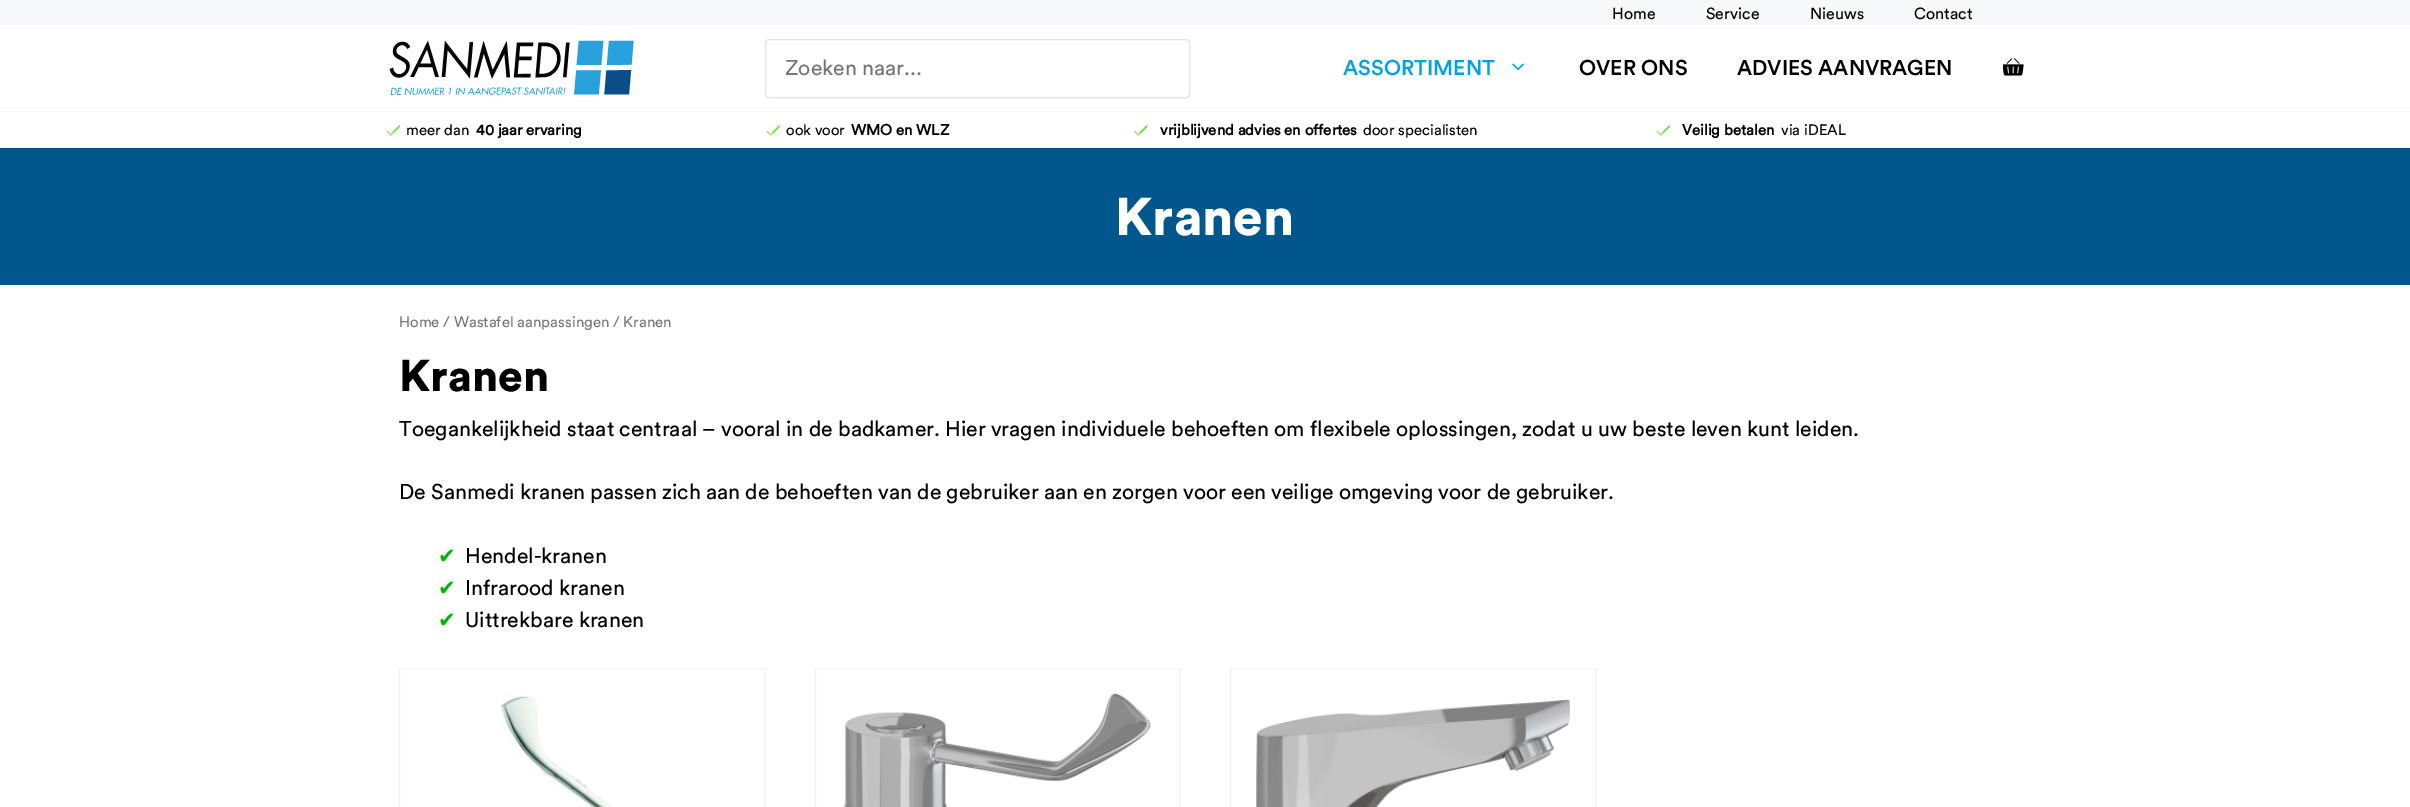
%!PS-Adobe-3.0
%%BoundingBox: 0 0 2410 807
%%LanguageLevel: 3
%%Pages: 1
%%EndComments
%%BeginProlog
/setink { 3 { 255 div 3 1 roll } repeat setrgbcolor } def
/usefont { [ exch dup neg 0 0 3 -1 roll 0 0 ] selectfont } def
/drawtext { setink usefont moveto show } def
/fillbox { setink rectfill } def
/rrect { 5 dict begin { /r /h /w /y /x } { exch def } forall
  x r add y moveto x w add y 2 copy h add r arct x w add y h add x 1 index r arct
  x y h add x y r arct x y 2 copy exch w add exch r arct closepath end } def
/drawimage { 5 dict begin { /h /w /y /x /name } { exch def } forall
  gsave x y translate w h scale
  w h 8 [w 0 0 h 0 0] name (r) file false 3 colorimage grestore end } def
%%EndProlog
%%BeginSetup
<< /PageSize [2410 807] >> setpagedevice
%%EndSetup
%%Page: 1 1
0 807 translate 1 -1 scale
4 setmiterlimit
0 0 2410 807 255 255 255 fillbox
0 0 2410 25 247 248 249 fillbox
(Home) 1612 19 /Circular-Regular 16 0 0 0 drawtext
(Service) 1706 19 /Circular-Regular 16 0 0 0 drawtext
(Nieuws) 1810 19 /Circular-Regular 16 0 0 0 drawtext
(Contact) 1914 19 /Circular-Regular 16 0 0 0 drawtext
(assets/img1.rgb) 389 40 245 55 drawimage
227 227 227 setink
765.5 39.5 424 58 3.5 rrect stroke
(Zoeken naar...) 785 75 /Circular-Regular 21.25 118 118 118 drawtext
(ASSORTIMENT) 1343 75 /Circular-Medium 21.25 0 162 227 drawtext
(assets/img2.rgb) 1512 63 12 8 drawimage
(OVER ONS) 1579 75 /Circular-Medium 21.25 0 0 0 drawtext
(ADVIES AANVRAGEN) 1737 75 /Circular-Medium 21.25 0 0 0 drawtext
(assets/img3.rgb) 2003 58 21 18 drawimage
0 111 2410 1 247 248 249 fillbox
(assets/img4.rgb) 386 125 14 11 drawimage
(meer dan) 406 135 /Circular-Regular 15 0 0 0 drawtext
(40 jaar ervaring) 476 135 /Circular-Bold 15 0 0 0 drawtext
(assets/img4.rgb) 766 125 14 11 drawimage
(ook voor) 786 135 /Circular-Regular 15 0 0 0 drawtext
(WMO en WLZ) 851 135 /Circular-Bold 15 0 0 0 drawtext
(assets/img5.rgb) 1134 125 14 11 drawimage
(vrijblijvend advies en offertes) 1160 135 /Circular-Bold 15 0 0 0 drawtext
(door specialisten) 1363 135 /Circular-Regular 15 0 0 0 drawtext
(assets/img6.rgb) 1656 125 14 11 drawimage
(Veilig betalen) 1682 135 /Circular-Bold 15 0 0 0 drawtext
(via iDEAL) 1781 135 /Circular-Regular 15 0 0 0 drawtext
0 148 2410 137 1 86 141 fillbox
(Kranen) 1115 235 /Circular-Black 52.5 255 255 255 drawtext
(Home / Wastafel aanpassingen / Kranen) 399 327 /Circular-Regular 15 118 118 118 drawtext
(Kranen) 399 391 /Circular-Black 44 0 0 0 drawtext
(Toegankelijkheid staat centraal – vooral in de badkamer. Hier vragen individuele behoeften om flexibele oplossingen, zodat u uw beste leven kunt leiden.) 399 436 /Circular-Regular 21.25 0 0 0 drawtext
(De Sanmedi kranen passen zich aan de behoeften van de gebruiker aan en zorgen voor een veilige omgeving voor de gebruiker.) 399 499 /Circular-Regular 21.25 0 0 0 drawtext
(✔) 438 563 /DejaVuSans-Regular 21.25 0 181 0 drawtext
(Hendel-kranen) 465 563 /Circular-Regular 21.25 0 0 0 drawtext
(✔) 438 595 /DejaVuSans-Regular 21.25 0 181 0 drawtext
(Infrarood kranen) 465 595 /Circular-Regular 21.25 0 0 0 drawtext
(✔) 438 627 /DejaVuSans-Regular 21.25 0 181 0 drawtext
(Uittrekbare kranen) 465 627 /Circular-Regular 21.25 0 0 0 drawtext
242 242 242 setink
399.5 668.5 365 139 rectstroke
(assets/img7.rgb) 500 694 112 113 drawimage
815.5 668.5 364 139 rectstroke
(assets/img8.rgb) 844 693 307 114 drawimage
1230.5 668.5 365 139 rectstroke
(assets/img9.rgb) 1256 699 314 108 drawimage
showpage
%%EOF
